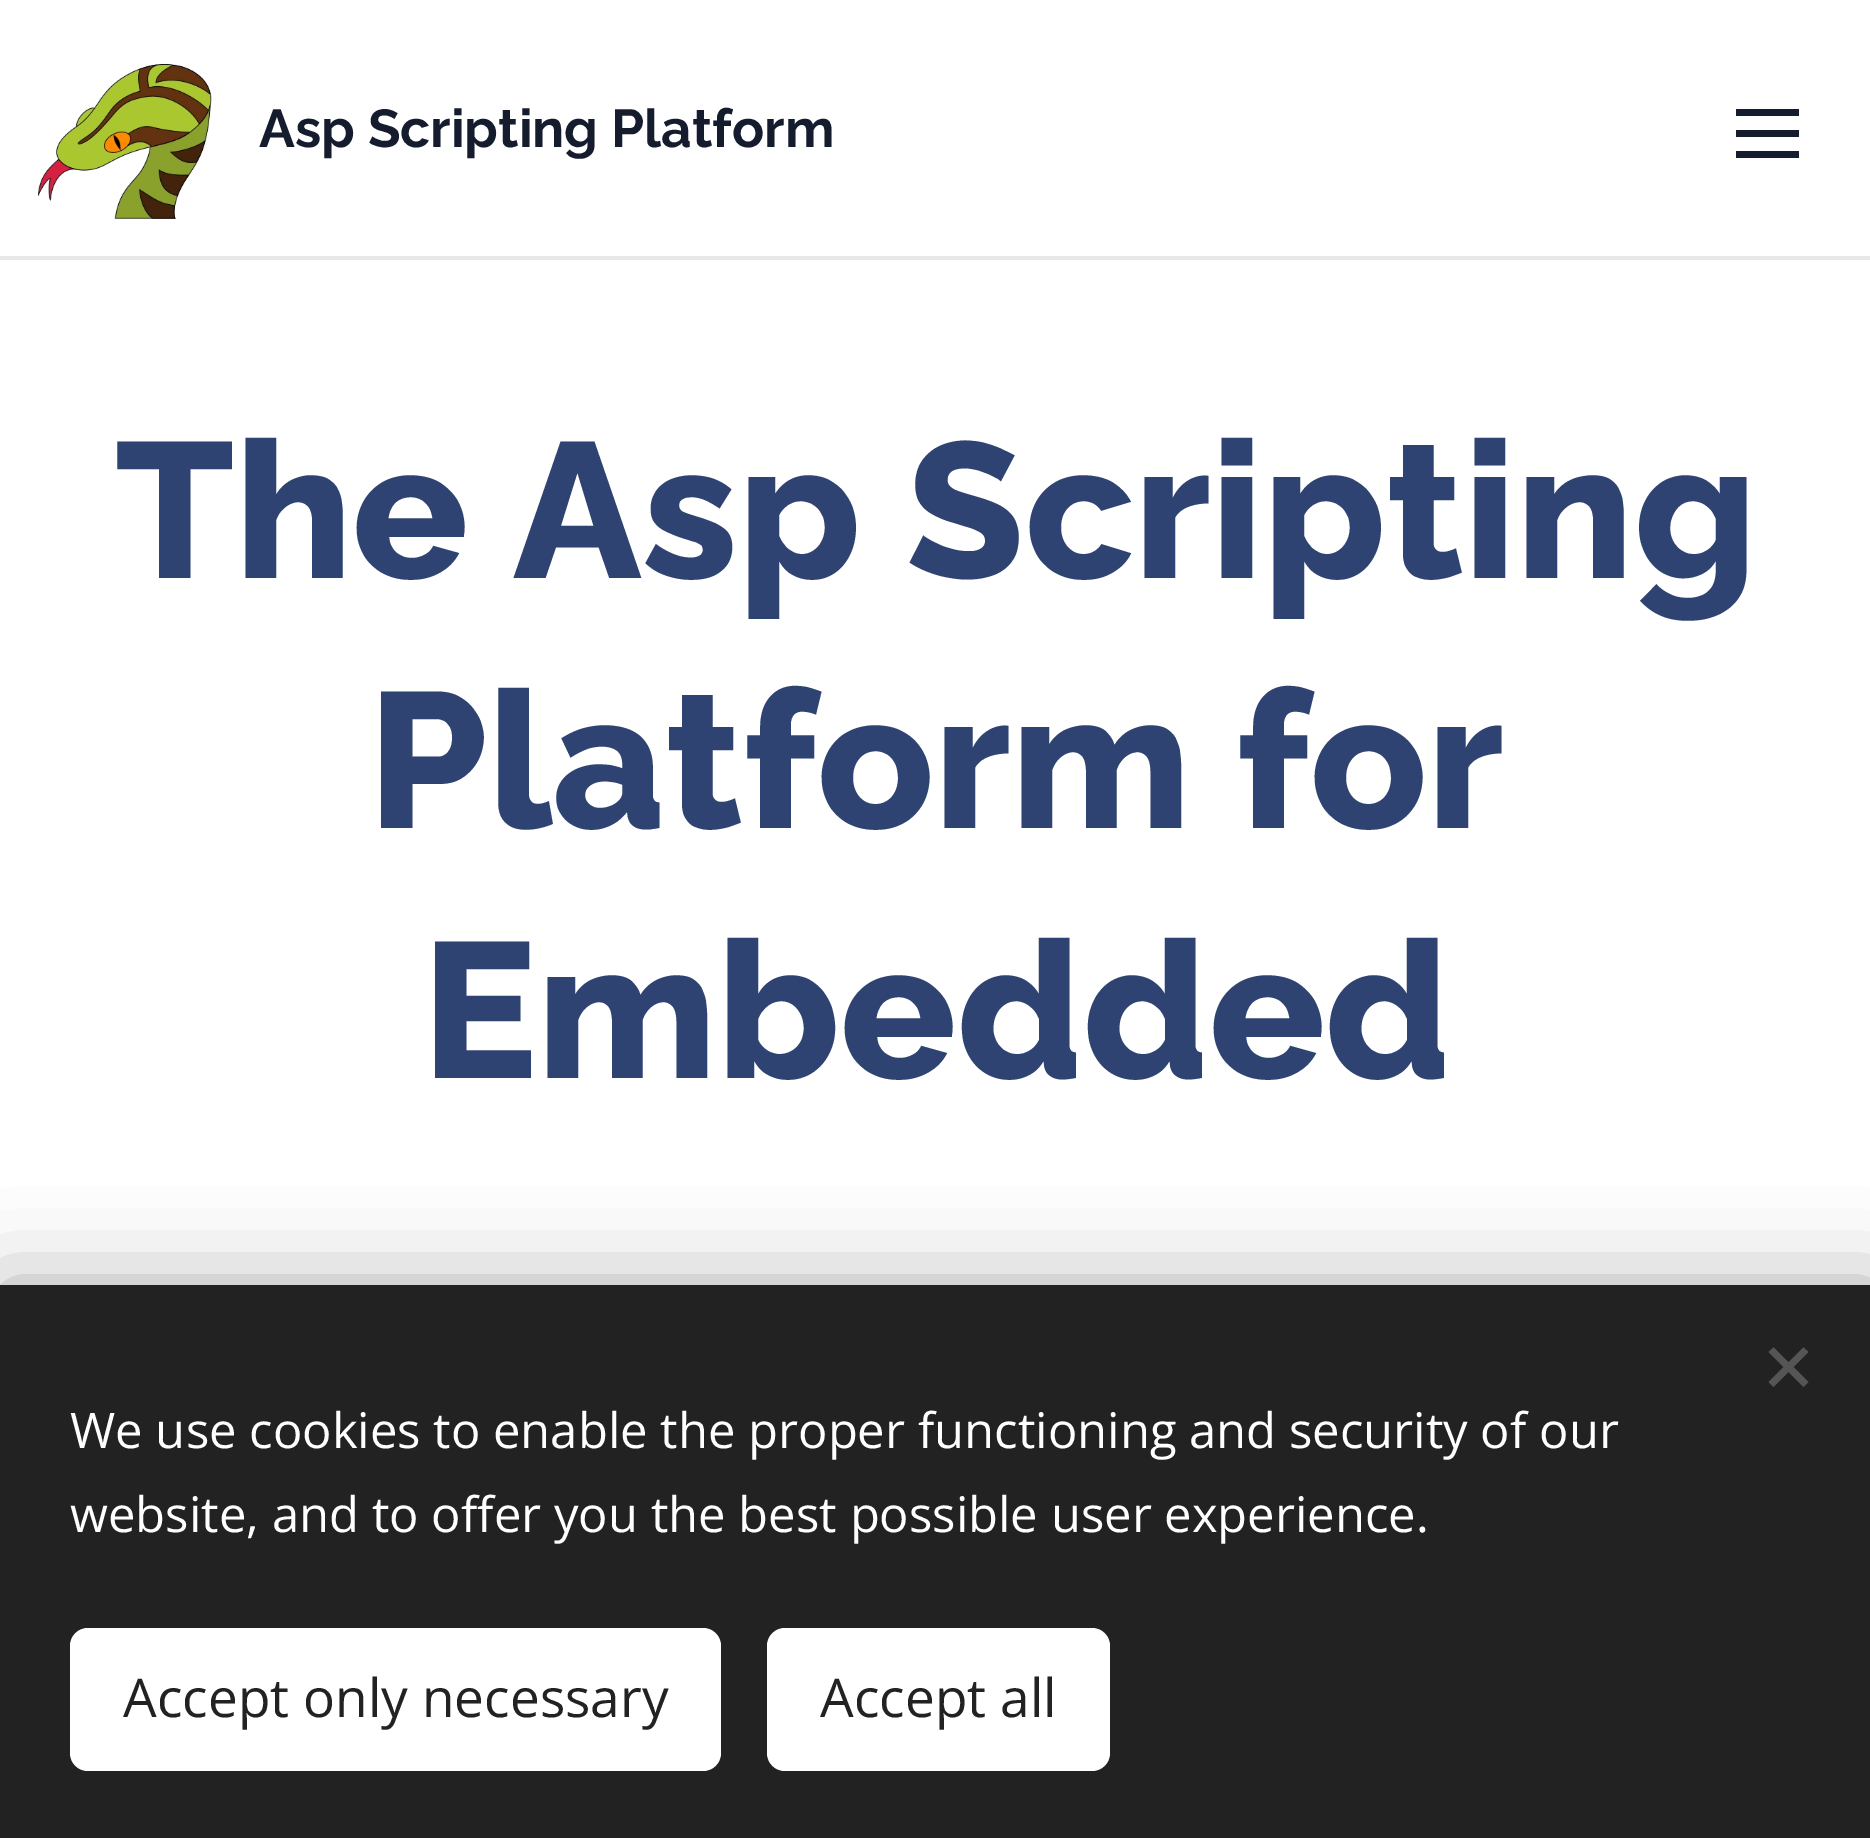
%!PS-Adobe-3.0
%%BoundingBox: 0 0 1870 1838
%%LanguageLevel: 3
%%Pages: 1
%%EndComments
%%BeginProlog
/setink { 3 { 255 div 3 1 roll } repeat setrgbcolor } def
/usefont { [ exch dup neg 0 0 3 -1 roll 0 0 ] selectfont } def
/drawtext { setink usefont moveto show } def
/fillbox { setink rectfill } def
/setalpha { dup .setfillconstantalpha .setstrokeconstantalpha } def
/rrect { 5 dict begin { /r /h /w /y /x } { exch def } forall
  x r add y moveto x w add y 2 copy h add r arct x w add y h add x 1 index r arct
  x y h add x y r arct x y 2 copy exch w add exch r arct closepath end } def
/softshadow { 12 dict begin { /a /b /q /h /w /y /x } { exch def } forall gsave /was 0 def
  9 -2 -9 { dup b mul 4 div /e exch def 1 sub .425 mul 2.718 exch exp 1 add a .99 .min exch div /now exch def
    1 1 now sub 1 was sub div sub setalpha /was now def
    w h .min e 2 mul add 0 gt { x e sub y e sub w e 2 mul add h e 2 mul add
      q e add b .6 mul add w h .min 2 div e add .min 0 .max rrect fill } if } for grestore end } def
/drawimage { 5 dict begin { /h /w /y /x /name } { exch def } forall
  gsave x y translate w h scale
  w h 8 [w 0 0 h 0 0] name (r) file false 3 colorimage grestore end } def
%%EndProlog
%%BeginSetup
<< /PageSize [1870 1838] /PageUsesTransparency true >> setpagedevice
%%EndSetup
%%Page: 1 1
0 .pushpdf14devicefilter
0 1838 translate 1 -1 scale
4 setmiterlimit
0 0 1870 1838 255 255 255 fillbox
(assets/img1.rgb) 38 63 174 156 drawimage
(Asp Scripting Platform) 259 147 /Raleway-Bold 53.25 20 28 45 drawtext
1736 130 63 7 20 28 45 fillbox
1736 109 63 7 20 28 45 fillbox
1736 151 63 7 20 28 45 fillbox
0 256 1870 4 232 232 232 fillbox
(The Asp Scripting) 115 578 /Raleway-ExtraBold 192.5 46 67 113 drawtext
(Platform for) 368 828 /Raleway-ExtraBold 192.5 46 67 113 drawtext
(Embedded) 422 1078 /Raleway-ExtraBold 192.5 46 67 113 drawtext
0 0 0 setink
0 1285 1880 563 0 44 0.33 softshadow
0 1285 1870 553 34 34 34 fillbox
85 85 85 setink
1768.5 1382 moveto 1803.5 1347.5 lineto 1808.5 1352 lineto 1773.5 1387 lineto closepath fill
1773.5 1347.5 moveto 1808.5 1382 lineto 1803.5 1387 lineto 1768.5 1352 lineto closepath fill
(We use cookies to enable the proper functioning and security of our) 70 1448 /OpenSans-Regular 49 255 255 255 drawtext
(website, and to offer you the best possible user experience.) 70 1532 /OpenSans-Regular 49 255 255 255 drawtext
70 1628 651 143 18 rrect fill
(Accept only necessary) 123 1717 /OpenSans-Regular 53.25 34 34 34 drawtext
255 255 255 setink
767 1628 343 143 18 rrect fill
(Accept all) 820 1717 /OpenSans-Regular 53.25 34 34 34 drawtext
.poppdf14devicefilter showpage
%%EOF
